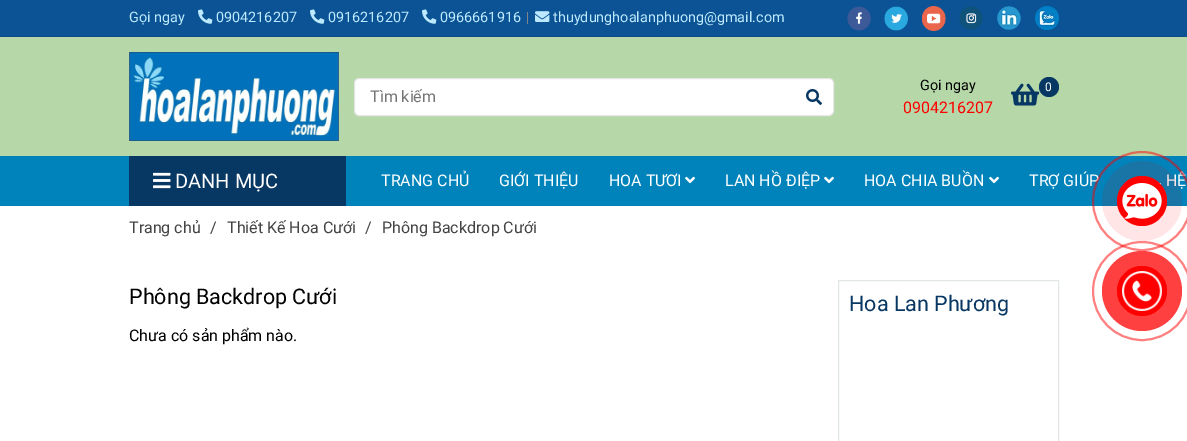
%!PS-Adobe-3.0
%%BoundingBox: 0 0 1187 441
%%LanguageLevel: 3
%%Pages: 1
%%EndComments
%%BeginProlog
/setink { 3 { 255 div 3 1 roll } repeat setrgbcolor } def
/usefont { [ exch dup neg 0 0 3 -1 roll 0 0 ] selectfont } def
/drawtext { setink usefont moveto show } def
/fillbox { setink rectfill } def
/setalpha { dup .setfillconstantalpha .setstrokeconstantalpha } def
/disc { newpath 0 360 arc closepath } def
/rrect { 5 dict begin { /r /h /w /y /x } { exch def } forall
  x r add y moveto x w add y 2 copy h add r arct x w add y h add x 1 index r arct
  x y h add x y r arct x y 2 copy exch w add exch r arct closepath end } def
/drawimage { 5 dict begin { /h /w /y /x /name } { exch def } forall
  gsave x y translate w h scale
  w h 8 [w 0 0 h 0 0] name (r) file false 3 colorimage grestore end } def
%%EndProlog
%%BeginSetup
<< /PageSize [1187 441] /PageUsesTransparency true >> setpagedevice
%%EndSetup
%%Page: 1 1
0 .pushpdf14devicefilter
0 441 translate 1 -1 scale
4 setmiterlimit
0 0 1187 441 255 255 255 fillbox
0 0 1187 36 11 83 148 fillbox
0 36 1187 1 10 76 136 fillbox
(Gọi ngay) 129 22 /Roboto-Regular 14.4 188 233 253 drawtext
(assets/img1.rgb) 198 9 15 15 drawimage
(0904216207) 216 22 /Roboto-Regular 14.4 188 233 253 drawtext
(assets/img1.rgb) 310 9 15 15 drawimage
(0916216207) 328 22 /Roboto-Regular 14.4 188 233 253 drawtext
(assets/img1.rgb) 422 9 15 15 drawimage
(0966661916) 440 22 /Roboto-Regular 14.4 188 233 253 drawtext
527 12 1 12 130 134 134 fillbox
(assets/img2.rgb) 535 11 15 11 drawimage
(thuydunghoalanphuong@gmail.com) 553 22 /Roboto-Regular 14.4 188 233 253 drawtext
(assets/img3.rgb) 847 6 24 25 drawimage
(assets/img4.rgb) 884 6 24 25 drawimage
(assets/img5.rgb) 922 6 24 25 drawimage
(assets/img6.rgb) 959 6 24 24 drawimage
(assets/img7.rgb) 997 6 24 24 drawimage
(assets/img8.rgb) 1035 6 24 24 drawimage
0 37 1187 119 182 215 168 fillbox
(assets/img9.rgb) 129 52 210 89 drawimage
255 255 255 setink
354.5 78.5 479 37 4.5 rrect gsave fill grestore
229 229 229 setink
stroke
(Tìm kiếm) 370 102 /Roboto-Regular 16 117 117 117 drawtext
(assets/img10.rgb) 806 89 16 16 drawimage
(Gọi ngay) 920 90 /Roboto-Regular 14.4 0 0 0 drawtext
(0904216207) 903 113 /Roboto-Regular 16 255 0 0 drawtext
(assets/img11.rgb) 1011 83 29 23 drawimage
7 55 99 setink
1049 87 10 disc fill
(0) 1045 91 /Roboto-Regular 12 255 255 255 drawtext
0 156 1187 50 0 130 186 fillbox
129 156 217 50 7 55 99 fillbox
(assets/img12.rgb) 153 172 18 17 drawimage
(DANH MỤC) 175 188 /Roboto-Regular 20 255 255 255 drawtext
(TRANG CHỦ) 381 186 /Roboto-Regular 16 255 255 255 drawtext
(GIỚI THIỆU) 499 186 /Roboto-Regular 16 255 255 255 drawtext
(HOA TƯƠI) 609 186 /Roboto-Regular 16 255 255 255 drawtext
(assets/img13.rgb) 685 176 10 8 drawimage
(LAN HỒ ĐIỆP) 725 186 /Roboto-Regular 16 255 255 255 drawtext
(assets/img13.rgb) 824 176 10 8 drawimage
(HOA CHIA BUỒN) 864 186 /Roboto-Regular 16 255 255 255 drawtext
(assets/img13.rgb) 989 176 10 8 drawimage
(TRỢ GIÚP) 1029 186 /Roboto-Regular 16 255 255 255 drawtext
(HỆ) 1166 186 /Roboto-Regular 16 255 255 255 drawtext
(Trang chủ) 129 233 /Roboto-Regular 16 68 68 68 drawtext
(/) 210 233 /Roboto-Regular 16 68 68 68 drawtext
(Thiết Kế Hoa Cưới) 227 233 /Roboto-Regular 16 68 68 68 drawtext
(/) 365 233 /Roboto-Regular 16 68 68 68 drawtext
(Phông Backdrop Cưới) 382 233 /Roboto-Regular 16 68 68 68 drawtext
255 128 128 setink
2 setlinewidth
1142 291 49 disc stroke
0.5 setalpha
255 0 0 setink
1142 201 49 disc stroke
0.1 setalpha
1142 201 40 disc fill
1 setalpha
1142 201 25 disc fill
(assets/img14.rgb) 1122 183 40 36 drawimage
255 64 64 setink
1142 291 40 disc fill
255 0 0 setink
1142 291 25 disc fill
(assets/img15.rgb) 1122 271 40 40 drawimage
(Phông Backdrop Cưới) 129 304 /Roboto-Regular 21.5 0 0 0 drawtext
(Chưa có sản phẩm nào.) 129 341 /Roboto-Regular 16 0 0 0 drawtext
226 230 231 setink
1 setlinewidth
838.5 280.5 220 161 rectstroke
(Hoa Lan Phương) 849 311 /Roboto-Regular 21.5 7 55 99 drawtext
.poppdf14devicefilter showpage
%%EOF
